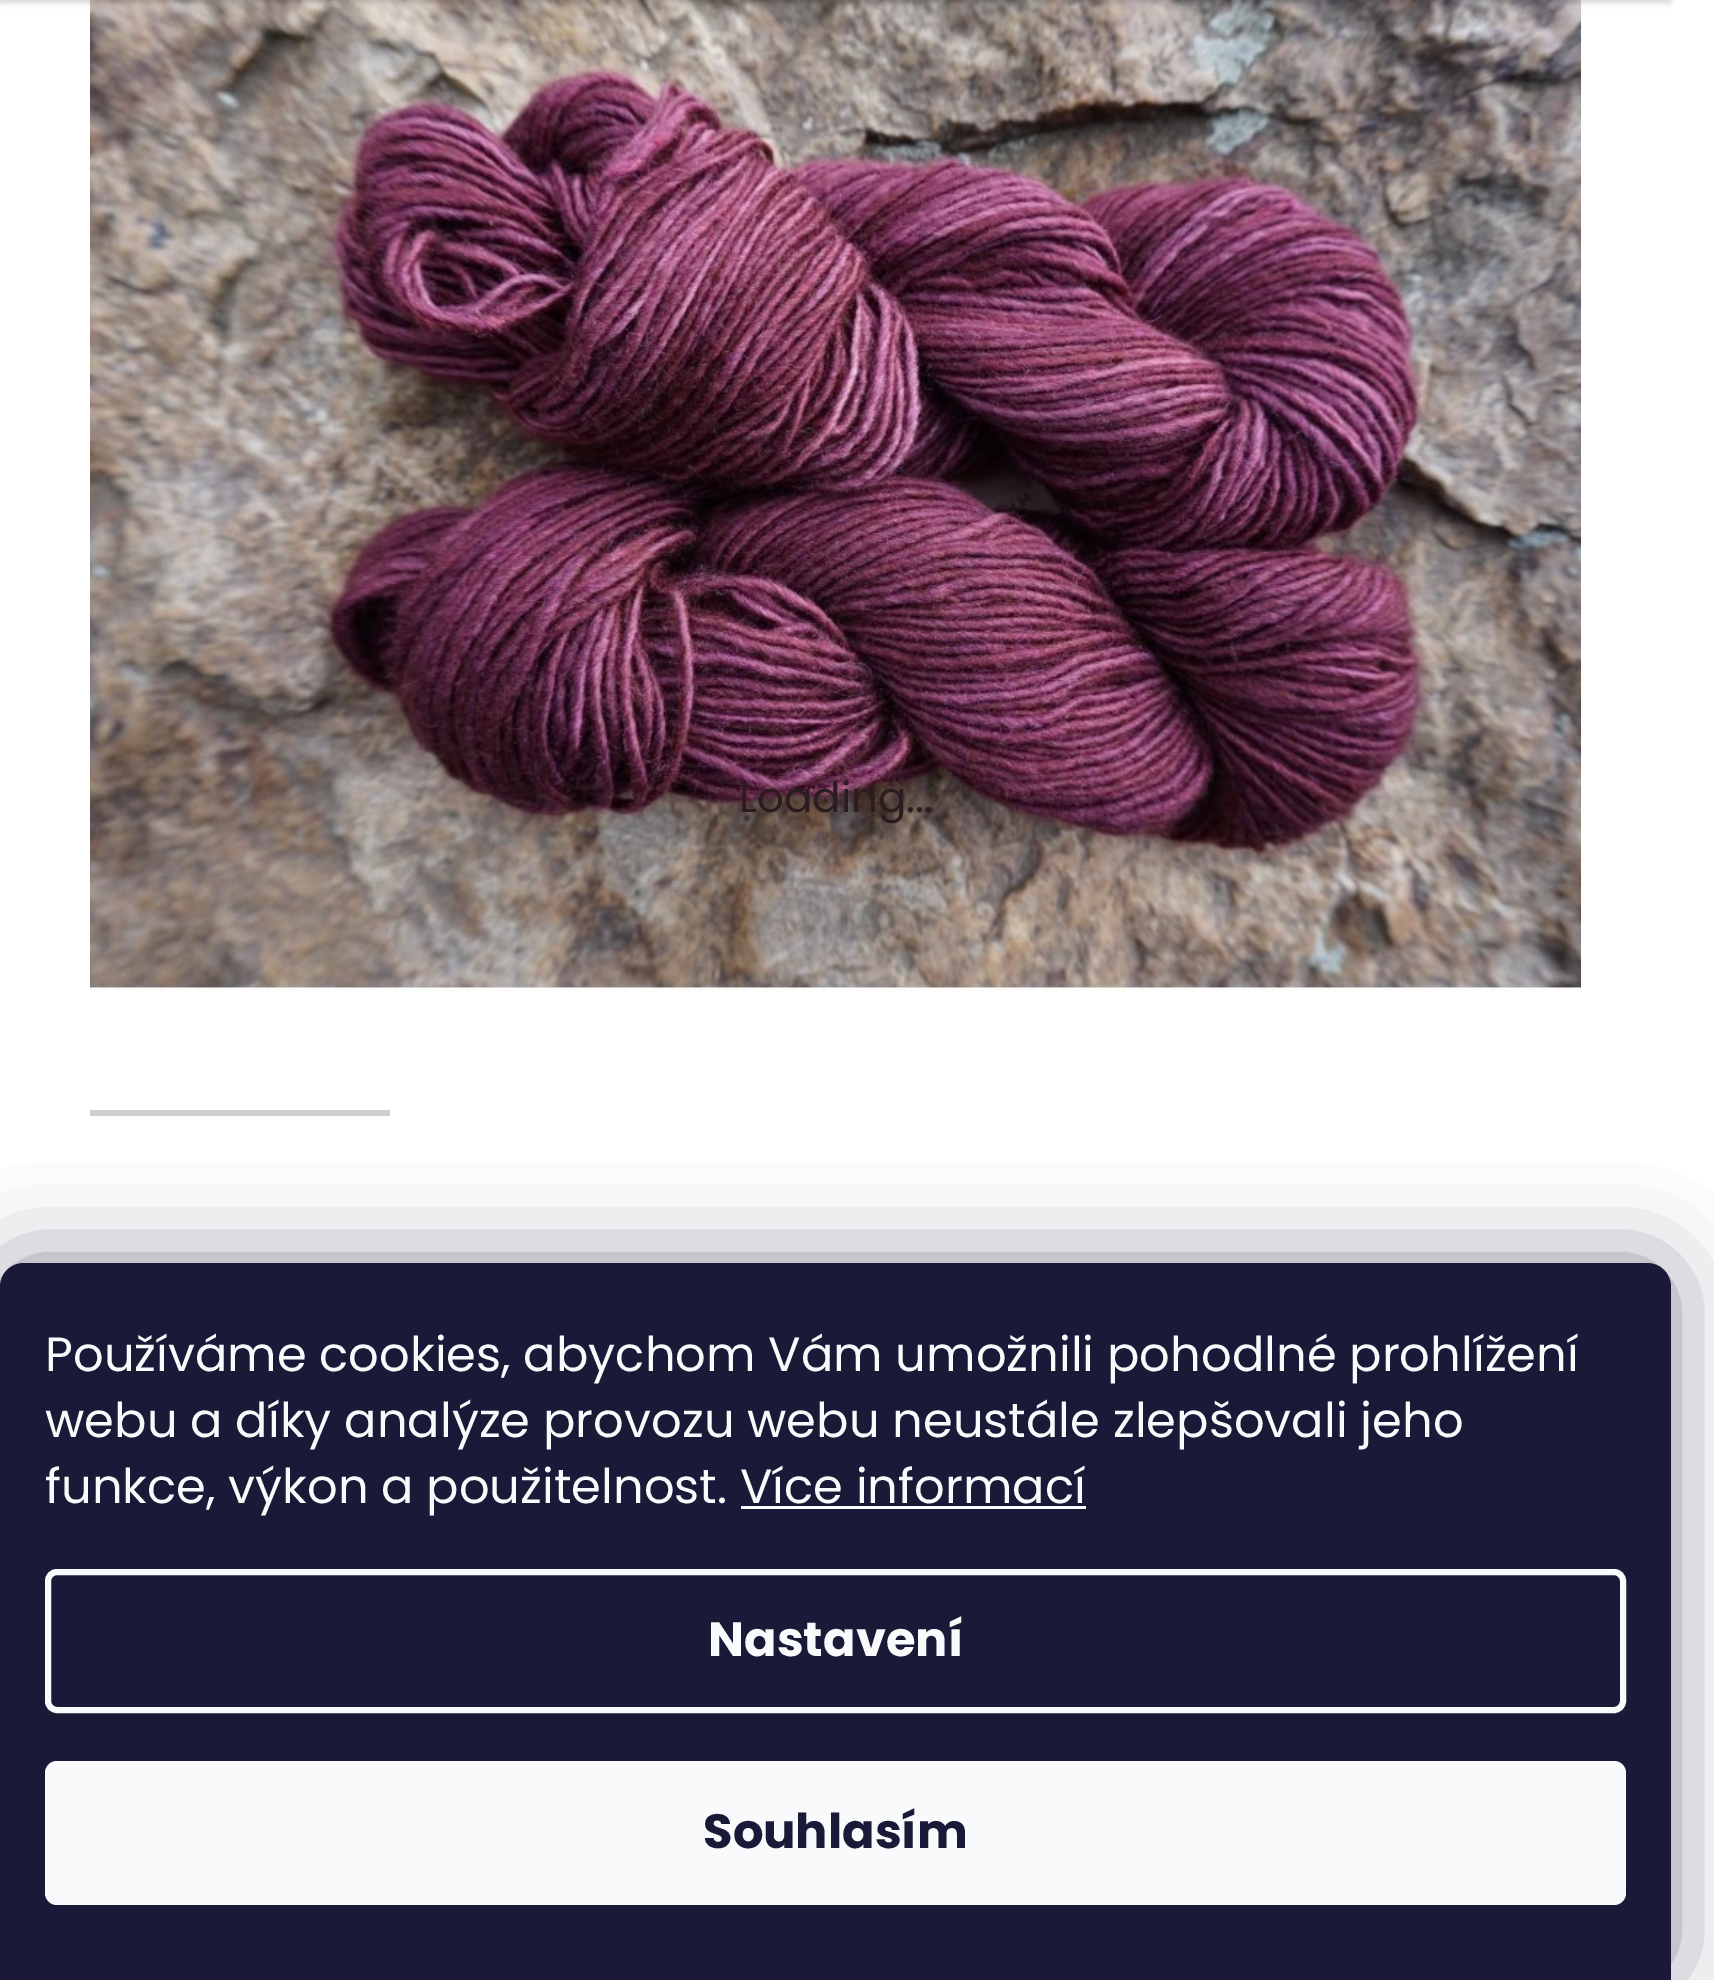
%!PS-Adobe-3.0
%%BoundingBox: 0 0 1714 1980
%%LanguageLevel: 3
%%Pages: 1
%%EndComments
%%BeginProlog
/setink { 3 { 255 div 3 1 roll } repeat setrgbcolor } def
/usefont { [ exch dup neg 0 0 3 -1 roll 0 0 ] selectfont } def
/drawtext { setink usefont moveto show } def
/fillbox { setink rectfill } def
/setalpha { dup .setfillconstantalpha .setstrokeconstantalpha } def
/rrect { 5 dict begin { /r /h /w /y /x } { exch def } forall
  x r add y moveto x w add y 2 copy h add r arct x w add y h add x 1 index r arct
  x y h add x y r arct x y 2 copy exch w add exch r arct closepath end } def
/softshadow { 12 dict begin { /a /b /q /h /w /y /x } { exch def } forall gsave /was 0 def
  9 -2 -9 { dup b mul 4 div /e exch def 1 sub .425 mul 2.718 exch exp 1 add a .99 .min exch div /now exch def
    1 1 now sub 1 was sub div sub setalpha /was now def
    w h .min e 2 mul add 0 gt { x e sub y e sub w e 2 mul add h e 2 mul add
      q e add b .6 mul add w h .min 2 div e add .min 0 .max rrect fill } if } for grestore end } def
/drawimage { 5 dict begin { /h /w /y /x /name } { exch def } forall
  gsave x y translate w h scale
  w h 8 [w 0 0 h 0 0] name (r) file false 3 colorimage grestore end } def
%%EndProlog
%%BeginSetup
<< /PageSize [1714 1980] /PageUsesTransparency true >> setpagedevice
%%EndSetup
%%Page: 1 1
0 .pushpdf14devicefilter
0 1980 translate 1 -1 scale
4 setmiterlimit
0 0 1714 1980 255 255 255 fillbox
(assets/img1.rgb) 90 0 1491 992 drawimage
0 0 0 setink
0 -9 1671 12 0 3 0.16 softshadow
(Loading...) 739 812 /Poppins-Regular 42 43 29 31 drawtext
90 1110 300 6 207 207 207 fillbox
27 25 57 setink
0 1263 1671 717 24 45 0.5 softshadow
26 25 55 setink
24 1263 moveto 1647 1263 lineto 1660.5 1263 1671 1273.5 1671 1287 curveto 1671 1980 lineto 0 1980 lineto 0 1287 lineto 0 1273.5 10.5 1263 24 1263 curveto closepath fill
(Používáme cookies, abychom Vám umožnili pohodlné prohlížení) 45 1371 /Poppins-Regular 48 248 250 251 drawtext
(webu a díky analýze provozu webu neustále zlepšovali jeho) 45 1437 /Poppins-Regular 48 248 250 251 drawtext
(funkce, výkon a použitelnost. Více informací) 45 1503 /Poppins-Regular 48 248 250 251 drawtext
741 1506 345 3 248 250 251 fillbox
6 setlinewidth
48 1572 1575 138 9 rrect stroke
(Nastavení) 708 1656 /Poppins-Bold 48 248 250 251 drawtext
45 1761 1581 144 12 rrect fill
(Souhlasím) 703 1848 /Poppins-Bold 48 26 25 55 drawtext
.poppdf14devicefilter showpage
%%EOF
